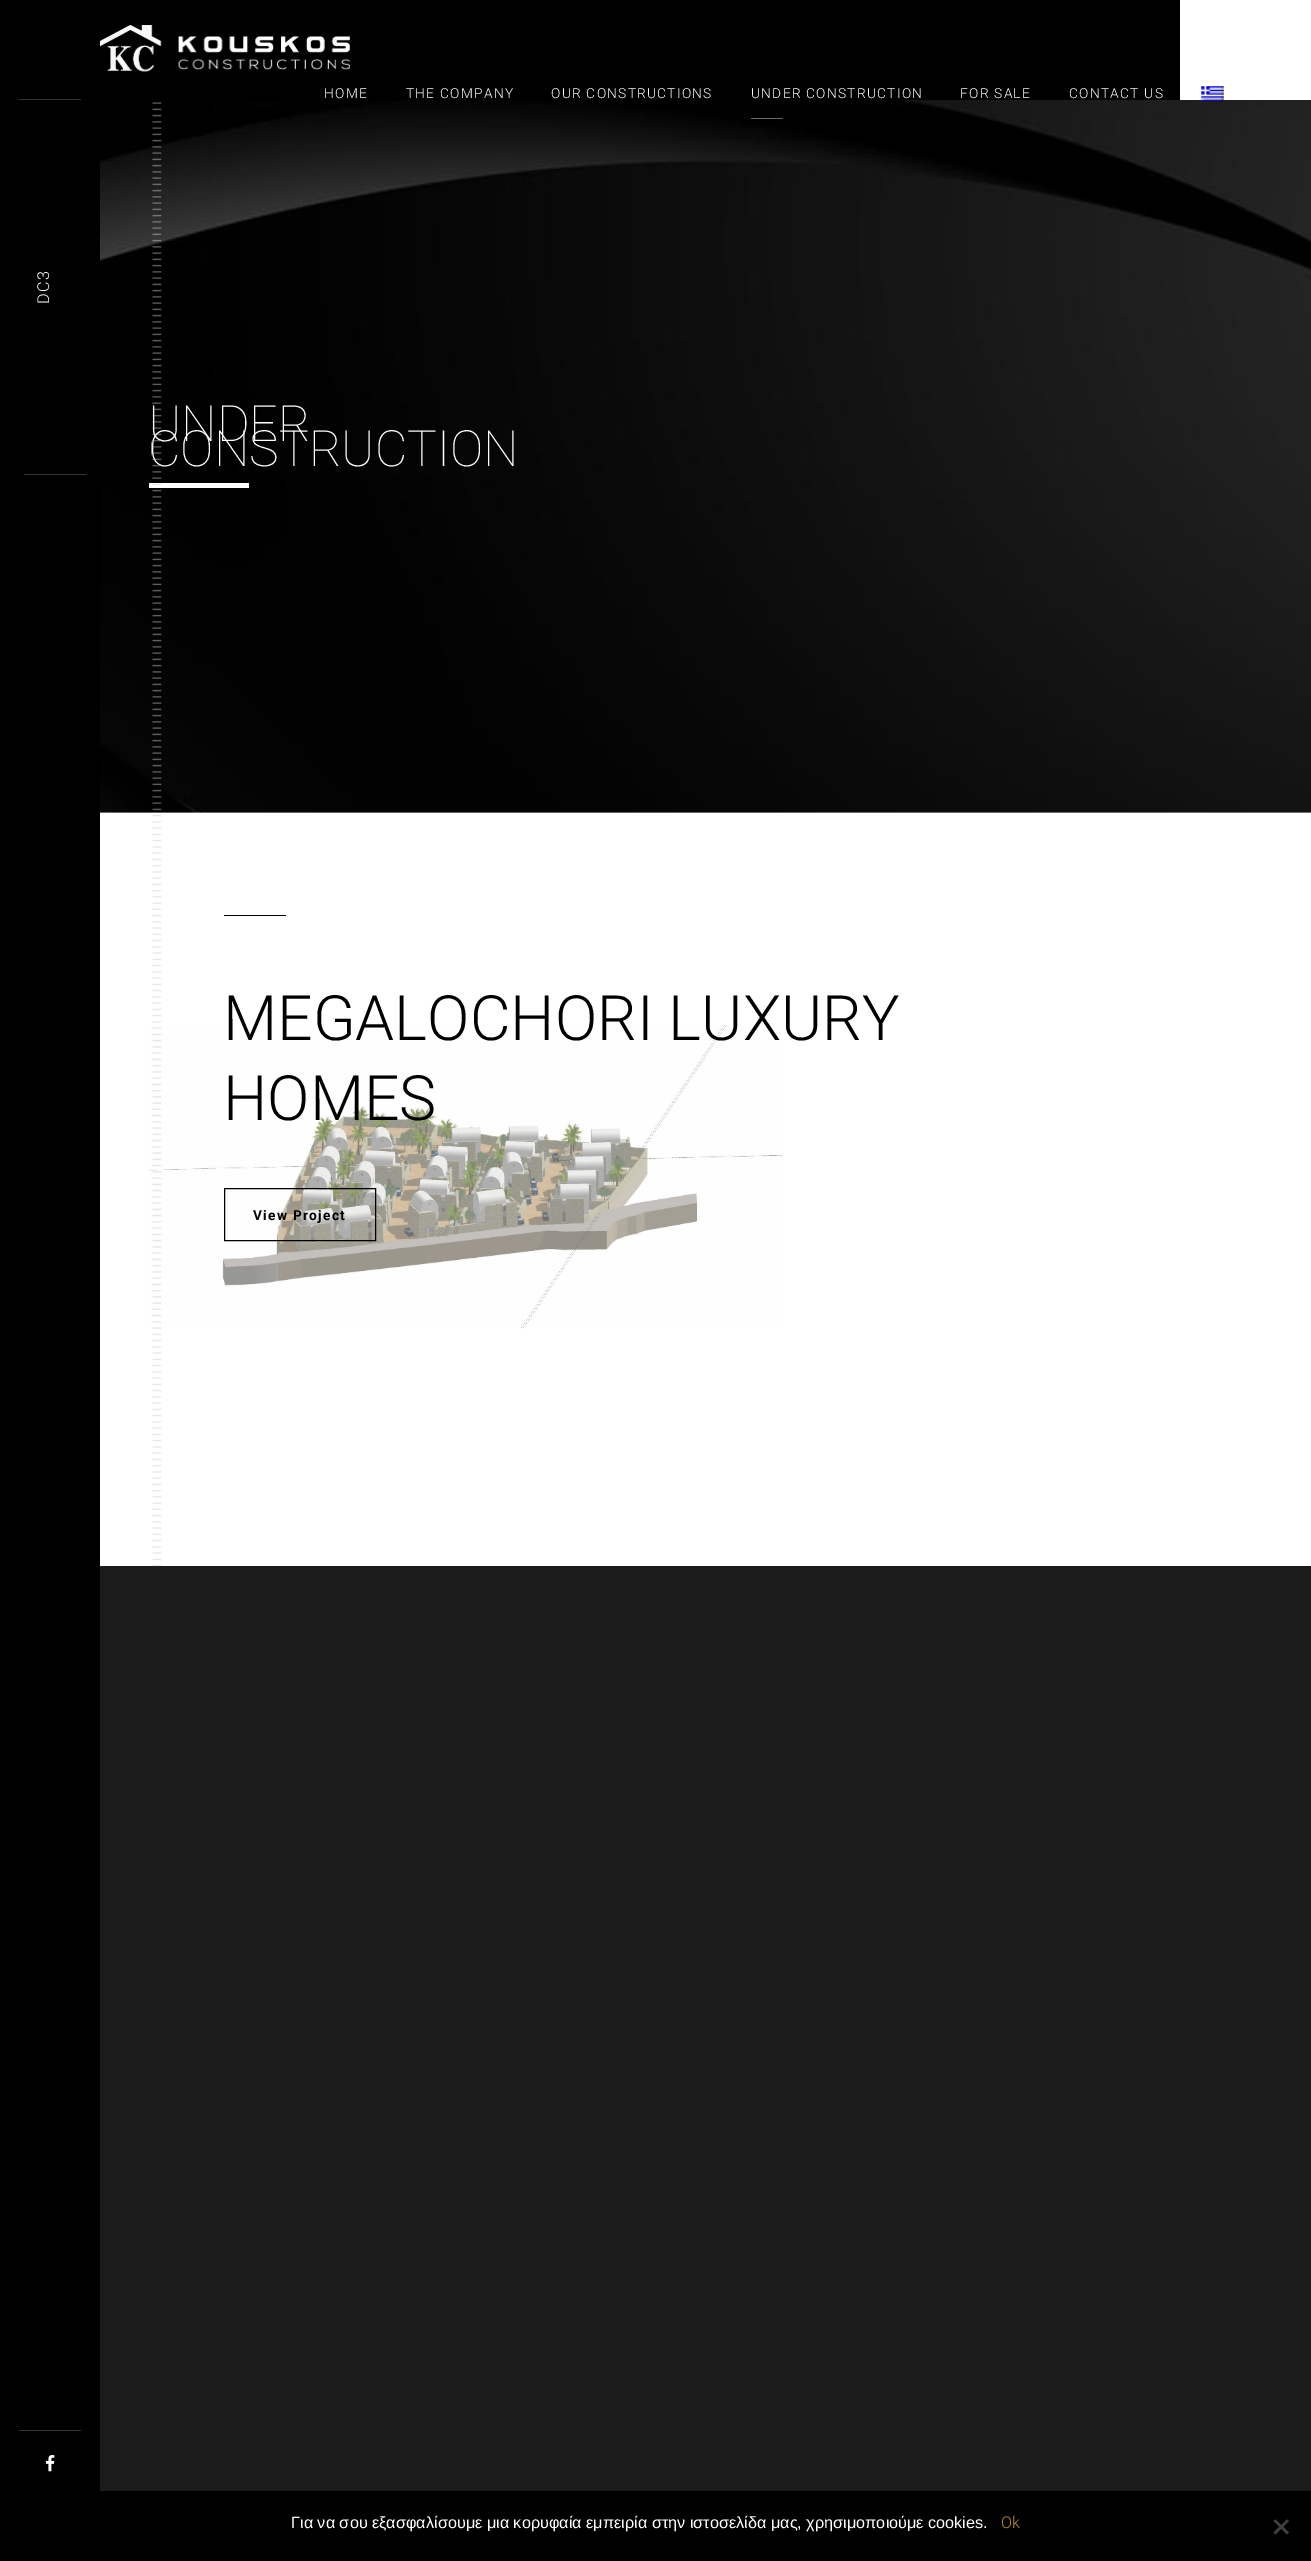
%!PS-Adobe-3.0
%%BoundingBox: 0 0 1311 2561
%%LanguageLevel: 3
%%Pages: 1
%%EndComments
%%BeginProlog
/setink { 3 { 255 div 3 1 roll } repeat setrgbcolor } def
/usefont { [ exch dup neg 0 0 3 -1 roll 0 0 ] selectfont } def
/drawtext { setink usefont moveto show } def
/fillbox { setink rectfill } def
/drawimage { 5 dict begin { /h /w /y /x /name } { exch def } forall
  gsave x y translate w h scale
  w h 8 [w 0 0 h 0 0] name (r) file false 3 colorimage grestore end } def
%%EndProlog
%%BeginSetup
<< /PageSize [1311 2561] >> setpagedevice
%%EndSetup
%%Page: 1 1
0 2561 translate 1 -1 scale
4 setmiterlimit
0 0 1311 2561 27 27 27 fillbox
0 0 1180 100 0 0 0 fillbox
(assets/img1.rgb) 100 25 250 47 drawimage
/Roboto-Light 13.75 usefont
255 255 255 setink
324 98 moveto 1.25 0 (HOME) ashow
406 98 moveto 1.25 0 (THE COMPANY) ashow
551 98 moveto 1.25 0 (OUR CONSTRUCTIONS) ashow
751 98 moveto 1.25 0 (UNDER CONSTRUCTION) ashow
100 812 1211 1 204 204 204 fillbox
(assets/img5.rgb) 100 100 1211 713 drawimage
751 118 32 1 105 105 105 fillbox
255 255 255 setink
960 98 moveto 1.25 0 (FOR SALE) ashow
1069 98 moveto 1.25 0 (CONTACT US) ashow
1180 0 131 100 255 255 255 fillbox
(assets/img2.rgb) 1201 86 23 16 drawimage
19 99 62 1 54 54 54 fillbox
0 100 100 2391 0 0 0 fillbox
/Roboto-Light 16.25 usefont
255 255 255 setink
gsave 49 304 translate -90 rotate 0 0 moveto 1.25 0 (DC3) ashow grestore
24 474 62 1 54 54 54 fillbox
19 2430 62 1 54 54 54 fillbox
(assets/img3.rgb) 45 2455 10 17 drawimage
(UNDER) 148 441 /Roboto-Thin 50 255 255 255 drawtext
(CONSTRUCTION) 148 466 /Roboto-Thin 50 255 255 255 drawtext
149 483 100 5 255 255 255 fillbox
(assets/img4.rgb) 152 102 10 709 drawimage
100 813 1211 753 255 255 255 fillbox
(assets/img7.rgb) 149 1025 634 304 drawimage
(assets/img6.rgb) 152 815 10 752 drawimage
224 915 62 1 0 0 0 fillbox
(MEGALOCHORI LUXURY) 223 1040 /Roboto-Light 62.5 0 0 0 drawtext
(HOMES) 223 1120 /Roboto-Light 62.5 0 0 0 drawtext
224.5 1188.5 151 52 rectstroke
/Roboto-Bold 13.75 usefont
253 1220 moveto 1.25 0 (View Project) ashow
0 2491 1311 70 0 0 0 fillbox
(Για να σου εξασφαλίσουμε μια κορυφαία εμπειρία στην ιστοσελίδα μας, χρησιμοποιούμε cookies.) 291 2528 /LiberationSans-Regular 16.25 255 255 255 drawtext
(Ok) 1001 2528 /Roboto-Light 16.25 183 144 38 drawtext
64 64 64 setink
1287 2519.5 moveto 1289 2521 lineto 1275.5 2534.5 lineto 1273.5 2532.5 lineto closepath fill
1273.5 2521 moveto 1275.5 2519.5 lineto 1289 2532.5 lineto 1287 2534.5 lineto closepath fill
showpage
%%EOF
